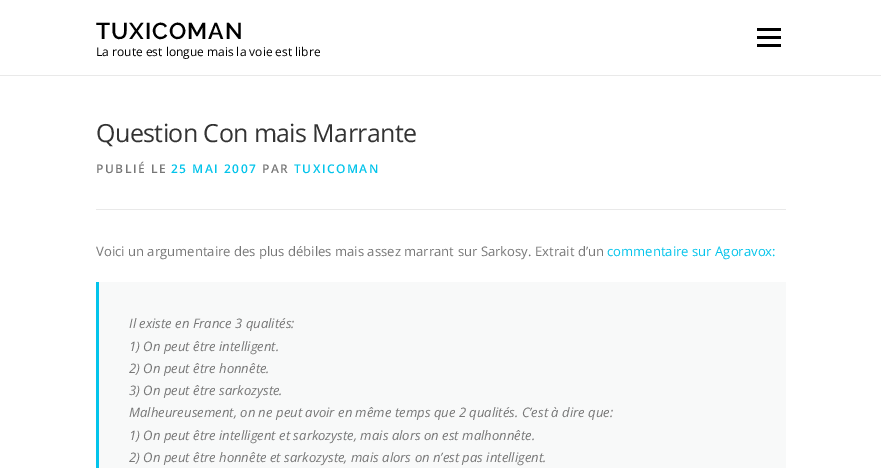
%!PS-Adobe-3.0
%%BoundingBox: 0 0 881 468
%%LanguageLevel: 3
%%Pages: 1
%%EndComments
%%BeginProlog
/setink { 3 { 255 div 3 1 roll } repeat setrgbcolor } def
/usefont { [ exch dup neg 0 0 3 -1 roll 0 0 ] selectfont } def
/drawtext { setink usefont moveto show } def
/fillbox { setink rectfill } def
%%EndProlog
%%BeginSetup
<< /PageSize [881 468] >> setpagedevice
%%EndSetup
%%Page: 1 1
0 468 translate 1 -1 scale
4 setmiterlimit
0 0 881 468 255 255 255 fillbox
/Raleway-SemiBold 23 usefont
0 0 0 setink
96 39 moveto 1 0 (TUXICOMAN) ashow
(La route est longue mais la voie est libre) 96 56 /OpenSans-Regular 12 0 0 0 drawtext
757 36 24 3 0 0 0 fillbox
757 28 24 3 0 0 0 fillbox
757 44 24 3 0 0 0 fillbox
0 75 881 1 233 233 233 fillbox
/OpenSans-Regular 25 usefont
51 51 51 setink
96 142 moveto -0.6 0 (Question Con mais Marrante) ashow
96 209 690 1 233 233 233 fillbox
/OpenSans-SemiBold 12 usefont
119 119 119 setink
96 173 moveto 1.5 0 (PUBLIÉ LE) ashow
3 196 235 setink
171 173 moveto 1.5 0 (25 MAI 2007) ashow
119 119 119 setink
262 173 moveto 1.5 0 (PAR) ashow
3 196 235 setink
294 173 moveto 1.5 0 (TUXICOMAN) ashow
(Voici un argumentaire des plus débiles mais assez marrant sur Sarkosy. Extrait d’un) 96 256 /OpenSans-Regular 13.1 119 119 119 drawtext
(commentaire sur Agoravox:) 607 256 /OpenSans-Regular 13.1 3 196 235 drawtext
99 282 687 186 248 249 249 fillbox
96 282 3 186 3 196 235 fillbox
(Il existe en France 3 qualités:) 129 328 /OpenSans-Italic 13.1 119 119 119 drawtext
(1\) On peut être intelligent.) 129 351 /OpenSans-Italic 13.1 119 119 119 drawtext
(2\) On peut être honnête.) 129 373 /OpenSans-Italic 13.1 119 119 119 drawtext
(3\) On peut être sarkozyste.) 129 395 /OpenSans-Italic 13.1 119 119 119 drawtext
(Malheureusement, on ne peut avoir en même temps que 2 qualités. C’est à dire que:) 129 417 /OpenSans-Italic 13.1 119 119 119 drawtext
(1\) On peut être intelligent et sarkozyste, mais alors on est malhonnête.) 129 440 /OpenSans-Italic 13.1 119 119 119 drawtext
(2\) On peut être honnête et sarkozyste, mais alors on n’est pas intelligent.) 129 462 /OpenSans-Italic 13.1 119 119 119 drawtext
showpage
%%EOF
